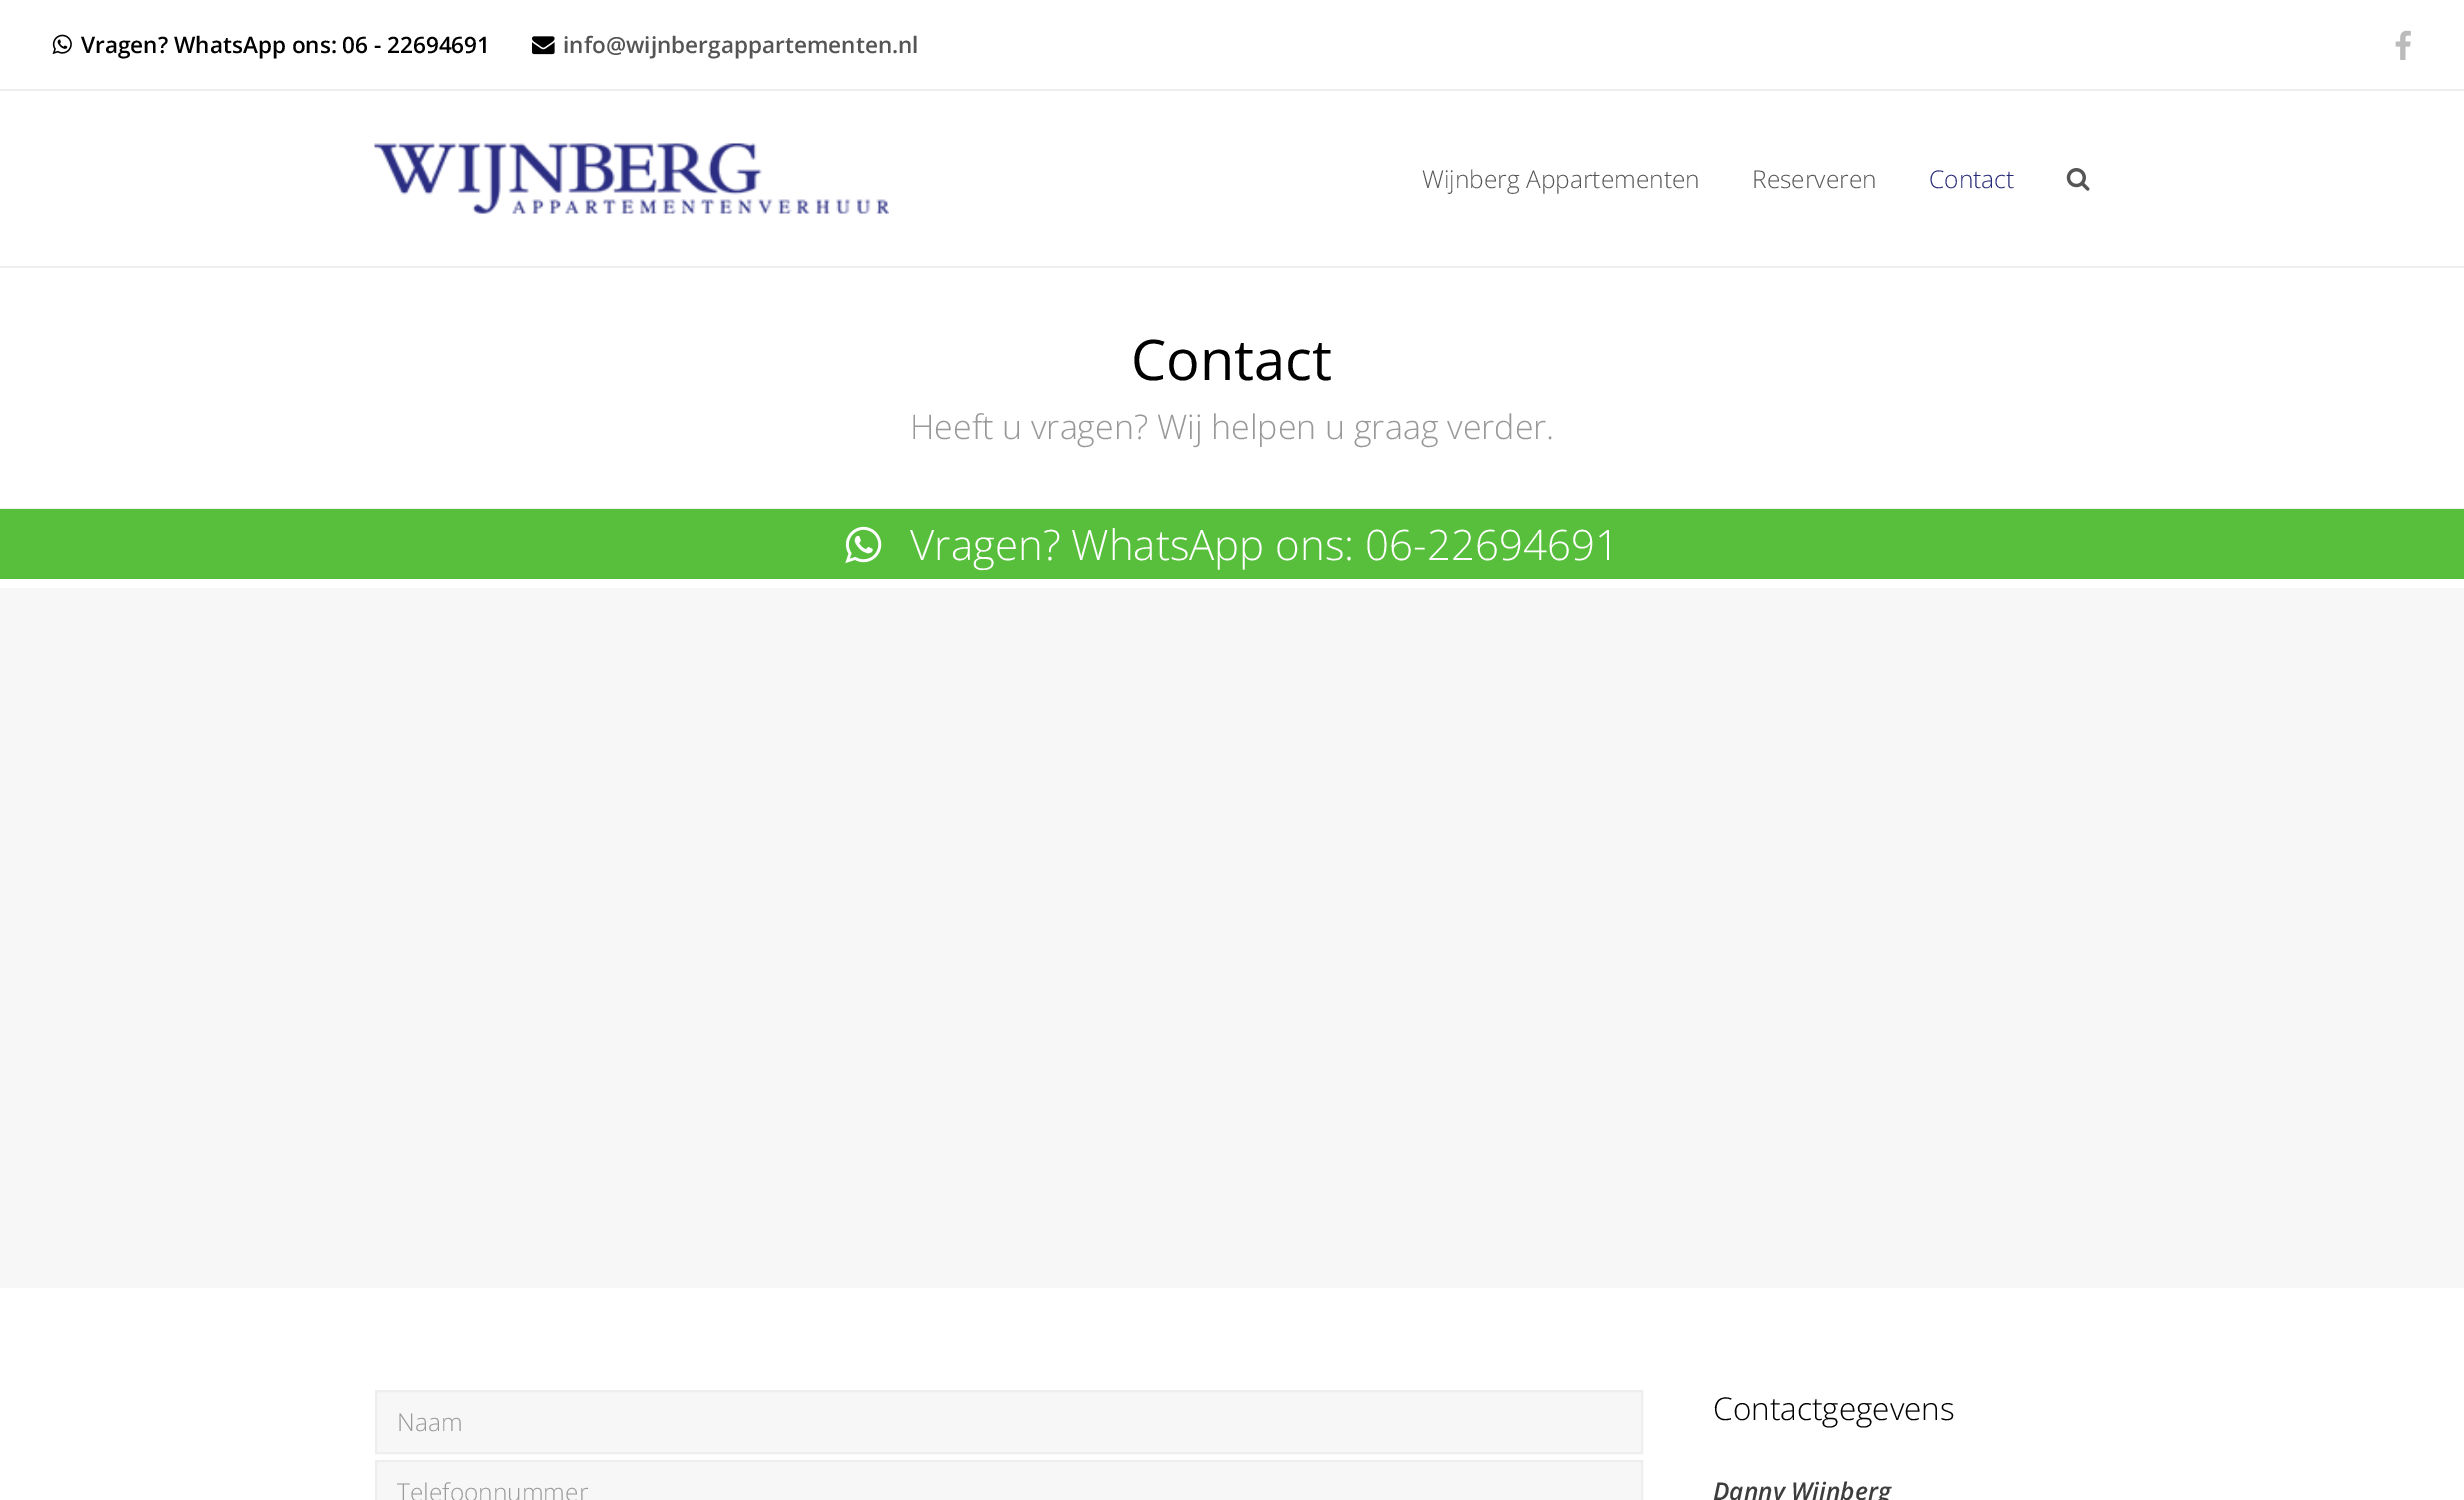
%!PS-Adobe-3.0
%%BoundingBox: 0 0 2464 1500
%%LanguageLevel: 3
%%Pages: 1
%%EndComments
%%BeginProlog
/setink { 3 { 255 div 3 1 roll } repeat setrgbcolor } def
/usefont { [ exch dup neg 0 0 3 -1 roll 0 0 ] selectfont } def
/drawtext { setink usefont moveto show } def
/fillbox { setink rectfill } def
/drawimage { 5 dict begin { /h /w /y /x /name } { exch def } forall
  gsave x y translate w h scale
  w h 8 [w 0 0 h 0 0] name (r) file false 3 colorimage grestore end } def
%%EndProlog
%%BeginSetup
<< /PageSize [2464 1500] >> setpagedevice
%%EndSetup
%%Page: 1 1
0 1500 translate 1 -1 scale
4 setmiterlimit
0 0 2464 1500 255 255 255 fillbox
0 89 2464 2 238 238 238 fillbox
(assets/img1.rgb) 52 34 20 21 drawimage
(Vragen? WhatsApp ons:) 81 53 /OpenSans-SemiBold 22.6 0 0 0 drawtext
(06 - 22694691) 342 53 /OpenSans-SemiBold 22.6 0 0 0 drawtext
(assets/img2.rgb) 532 36 23 19 drawimage
(info@wijnbergappartementen.nl) 563 53 /OpenSans-SemiBold 22.6 85 85 85 drawtext
(assets/img3.rgb) 2395 30 16 30 drawimage
(assets/img4.rgb) 374 143 515 71 drawimage
(Wijnberg Appartementen) 1422 188 /OpenSans-Light 24.5 85 85 85 drawtext
(Reserveren) 1752 188 /OpenSans-Light 24.5 85 85 85 drawtext
(Contact) 1929 188 /OpenSans-Light 24.5 38 41 120 drawtext
(assets/img5.rgb) 2066 168 24 23 drawimage
0 266 2464 2 238 238 238 fillbox
0 508 2464 1 238 238 238 fillbox
(Contact) 1131 380 /OpenSans-Regular 56 0 0 0 drawtext
(Heeft u vragen? Wij helpen u graag verder.) 910 439 /OpenSans-Light 33.9 153 153 153 drawtext
0 509 2464 70 87 191 59 fillbox
(assets/img6.rgb) 845 526 37 38 drawimage
(Vragen? WhatsApp ons: 06-22694691) 910 560 /OpenSans-Light 42 255 255 255 drawtext
0 588 2464 700 247 247 247 fillbox
376 1391 moveto 1642 1391 lineto 1642 1453 lineto 376 1453 lineto closepath gsave fill grestore
238 238 238 setink
2 setlinewidth
stroke
(Naam) 397 1431 /OpenSans-Light 24.5 153 153 153 drawtext
247 247 247 setink
376 1461 moveto 1642 1461 lineto 1642 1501 lineto 376 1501 lineto closepath gsave fill grestore
238 238 238 setink
stroke
(Telefoonnummer) 397 1501 /OpenSans-Light 24.5 153 153 153 drawtext
(Contactgegevens) 1713 1420 /OpenSans-Light 31.5 0 0 0 drawtext
(Danny Wijnberg) 1713 1500 /OpenSans-SemiBoldItalic 24.5 61 61 61 drawtext
showpage
%%EOF
